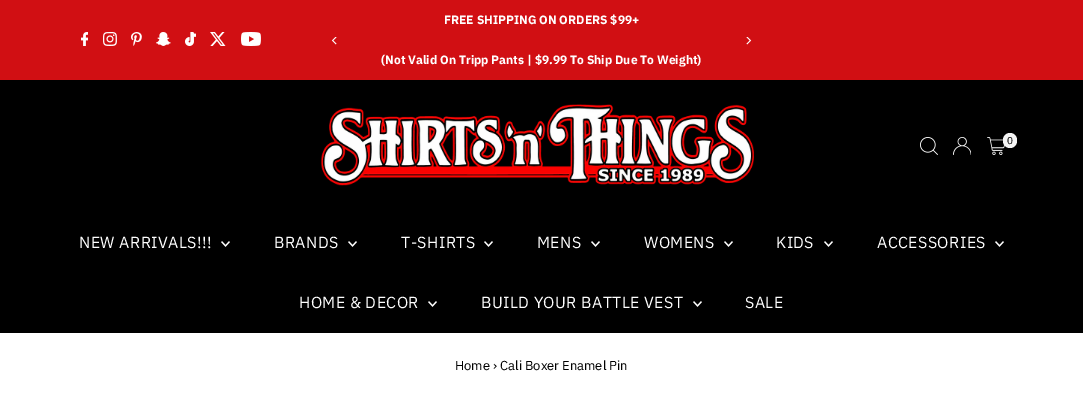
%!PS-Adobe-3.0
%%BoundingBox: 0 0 1083 409
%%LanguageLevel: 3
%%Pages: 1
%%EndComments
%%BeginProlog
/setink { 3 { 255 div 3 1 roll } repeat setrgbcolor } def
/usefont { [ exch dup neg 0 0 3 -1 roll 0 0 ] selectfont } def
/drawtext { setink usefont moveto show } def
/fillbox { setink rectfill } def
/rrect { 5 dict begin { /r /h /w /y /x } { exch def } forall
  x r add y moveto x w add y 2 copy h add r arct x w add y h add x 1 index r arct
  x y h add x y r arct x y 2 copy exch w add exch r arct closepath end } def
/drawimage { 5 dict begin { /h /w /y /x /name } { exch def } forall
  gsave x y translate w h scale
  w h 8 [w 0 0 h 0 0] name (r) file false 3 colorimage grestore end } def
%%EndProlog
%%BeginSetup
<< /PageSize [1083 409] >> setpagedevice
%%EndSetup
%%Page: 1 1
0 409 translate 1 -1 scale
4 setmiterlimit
0 0 1083 409 255 255 255 fillbox
0 0 1083 80 209 15 19 fillbox
(assets/img1.rgb) 81 32 7 14 drawimage
(assets/img2.rgb) 103 32 14 14 drawimage
(assets/img3.rgb) 131 32 11 14 drawimage
(assets/img4.rgb) 156 32 15 14 drawimage
(assets/img5.rgb) 185 32 11 14 drawimage
(assets/img6.rgb) 210 32 16 14 drawimage
(assets/img7.rgb) 241 32 20 14 drawimage
(assets/img8.rgb) 331 37 6 8 drawimage
(FREE SHIPPING ON ORDERS $99+) 444 24 /IBMPlexSans-Bold 12.05 255 255 255 drawtext
(\(Not Valid On Tripp Pants | $9.99 To Ship Due To Weight\)) 381 64 /IBMPlexSans-Bold 12.05 255 255 255 drawtext
(assets/img9.rgb) 746 37 6 8 drawimage
0 80 1083 253 0 0 0 fillbox
(assets/img10.rgb) 320 104 434 82 drawimage
(assets/img11.rgb) 920 137 18 18 drawimage
(assets/img12.rgb) 953 137 18 18 drawimage
(assets/img13.rgb) 987 137 18 18 drawimage
245 245 245 setink
1003 133 14 15 7 rrect fill
(0) 1007 144 /IBMPlexSans-Regular 10 0 0 0 drawtext
/IBMPlexSans-Regular 16 usefont
255 255 255 setink
79 248 moveto 0.4 0 (NEW ARRIVALS!!!) ashow
(assets/img14.rgb) 221 241 9 6 drawimage
274 248 moveto 0.4 0 (BRANDS) ashow
(assets/img14.rgb) 348 241 9 6 drawimage
401 248 moveto 0.4 0 (T-SHIRTS) ashow
(assets/img14.rgb) 484 241 9 6 drawimage
537 248 moveto 0.4 0 (MENS) ashow
(assets/img14.rgb) 591 241 9 6 drawimage
644 248 moveto 0.4 0 (WOMENS) ashow
(assets/img14.rgb) 724 241 9 6 drawimage
776 248 moveto 0.4 0 (KIDS) ashow
(assets/img14.rgb) 824 241 9 6 drawimage
877 248 moveto 0.4 0 (ACCESSORIES) ashow
(assets/img14.rgb) 995 241 9 6 drawimage
299 308 moveto 0.4 0 (HOME & DECOR) ashow
(assets/img14.rgb) 428 301 9 6 drawimage
481 308 moveto 0.4 0 (BUILD YOUR BATTLE VEST) ashow
(assets/img14.rgb) 693 301 9 6 drawimage
745 308 moveto 0.4 0 (SALE) ashow
(Home › Cali Boxer Enamel Pin) 455 370 /IBMPlexSans-Regular 13 0 0 0 drawtext
showpage
%%EOF
